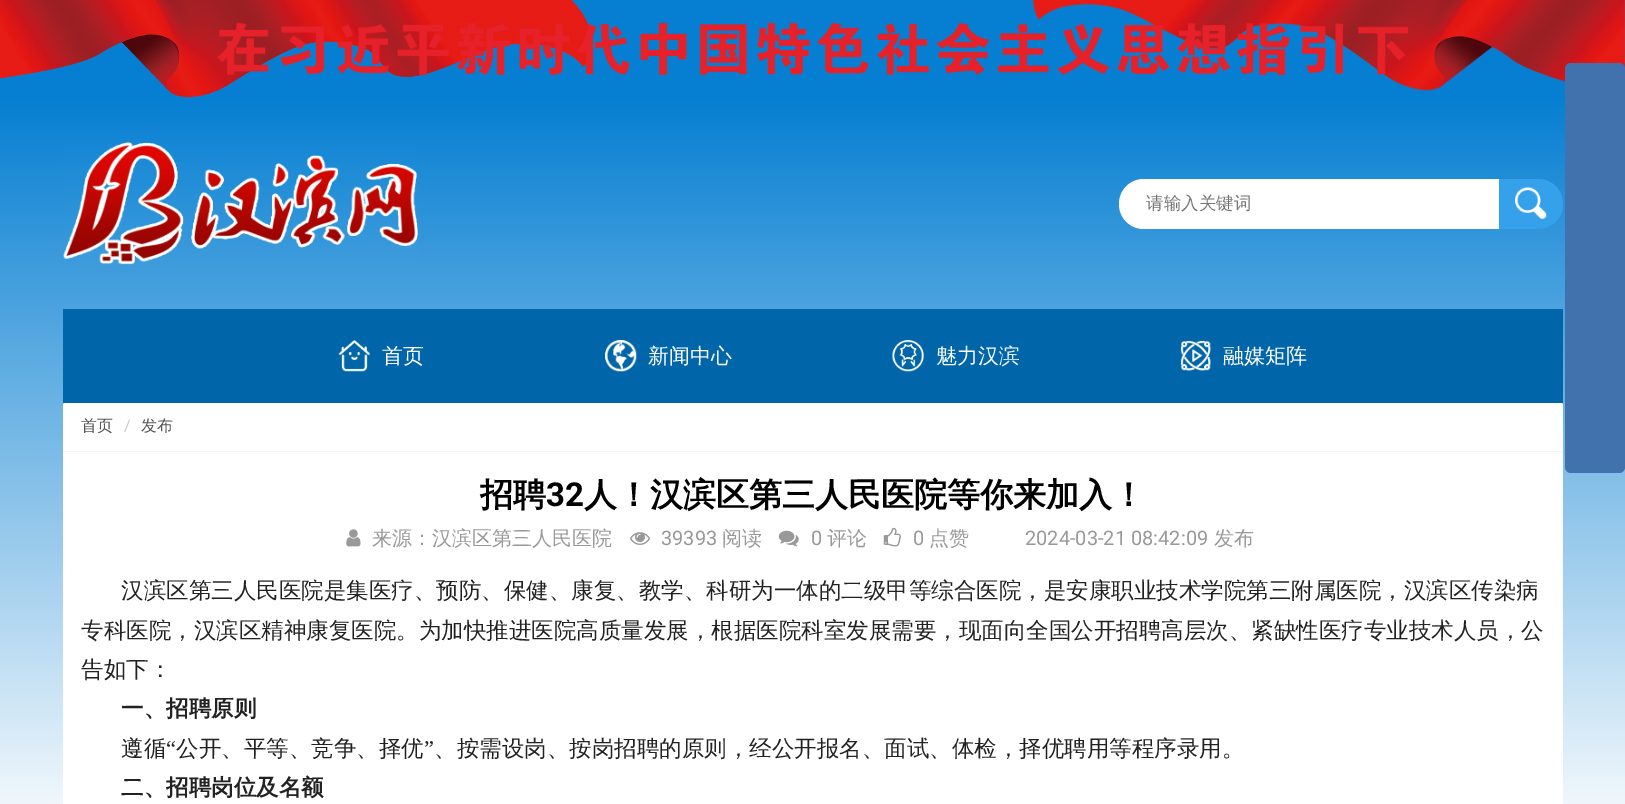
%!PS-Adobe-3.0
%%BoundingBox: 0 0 1625 804
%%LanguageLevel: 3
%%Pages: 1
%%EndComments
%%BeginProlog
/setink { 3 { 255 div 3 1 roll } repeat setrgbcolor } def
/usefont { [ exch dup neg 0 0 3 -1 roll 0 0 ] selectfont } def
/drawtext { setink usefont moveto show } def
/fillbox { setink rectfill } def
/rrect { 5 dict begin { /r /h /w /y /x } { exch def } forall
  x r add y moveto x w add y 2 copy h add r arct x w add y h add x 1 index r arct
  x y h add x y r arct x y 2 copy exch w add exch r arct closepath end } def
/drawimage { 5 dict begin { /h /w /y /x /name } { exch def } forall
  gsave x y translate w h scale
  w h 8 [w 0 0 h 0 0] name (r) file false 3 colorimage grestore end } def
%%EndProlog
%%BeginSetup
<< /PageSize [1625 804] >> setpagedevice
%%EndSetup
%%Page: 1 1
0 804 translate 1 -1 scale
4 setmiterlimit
0 0 1625 804 255 255 255 fillbox
gsave 0 98 moveto 1625 98 lineto 1625 804 lineto 0 804 lineto closepath clip newpath
<< /ShadingType 2 /ColorSpace /DeviceRGB /Coords [813 97 813 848] /Extend [true true] /Function << /FunctionType 2 /Domain [0 1] /C0 [0.024 0.498 0.824] /C1 [1 1 1] /N 1 >> >> shfill grestore
0 0 1625 98 6 127 210 fillbox
(assets/img2.rgb) 1032 0 593 91 drawimage
66 114 174 setink
1565 63 60 410 6 rrect fill
(assets/img1.rgb) 0 0 589 98 drawimage
(assets/img3.rgb) 217 22 1192 53 drawimage
(assets/img4.rgb) 63 142 355 123 drawimage
255 255 255 setink
1144 179 moveto 1499 179 lineto 1499 229 lineto 1144 229 lineto 1130 229 1119 218 1119 204 curveto 1119 190 1130 179 1144 179 curveto closepath fill
(请输入关键词) 1146 209 /WenQuanYiZenHei-Medium 17.5 117 117 117 drawtext
52 161 234 setink
1499 179 moveto 1538 179 lineto 1552 179 1563 190 1563 204 curveto 1563 218 1552 229 1538 229 curveto 1499 229 lineto closepath fill
(assets/img5.rgb) 1515 187 32 32 drawimage
63 309 1500 94 0 101 169 fillbox
(assets/img6.rgb) 338 340 32 32 drawimage
(首页) 382 363 /WenQuanYiZenHei-Medium 21 255 255 255 drawtext
(assets/img7.rgb) 605 340 32 32 drawimage
(新闻中心) 648 363 /WenQuanYiZenHei-Medium 21 255 255 255 drawtext
(assets/img8.rgb) 892 340 32 32 drawimage
(魅力汉滨) 936 363 /WenQuanYiZenHei-Medium 21 255 255 255 drawtext
(assets/img9.rgb) 1180 340 31 31 drawimage
(融媒矩阵) 1223 363 /WenQuanYiZenHei-Medium 21 255 255 255 drawtext
63 403 1500 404 2.5 rrect fill
65.5 403 moveto 1560.5 403 lineto 1562 403 1563 404 1563 405.5 curveto 1563 453 lineto 63 453 lineto 63 405.5 lineto 63 404 64 403 65.5 403 curveto closepath fill
63 451 1500 1 245 245 245 fillbox
(首页) 81 431 /WenQuanYiZenHei-Medium 16 85 85 85 drawtext
(/) 124 431 /Roboto-Regular 16 204 204 204 drawtext
(发布) 141 431 /WenQuanYiZenHei-Medium 16 85 85 85 drawtext
(招聘) 480 506 /WenQuanYiZenHei-Bold 33 0 0 0 drawtext
(32) 546 506 /Roboto-Bold 33 0 0 0 drawtext
(人！汉滨区第三人民医院等你来加入！) 584 506 /WenQuanYiZenHei-Bold 33 0 0 0 drawtext
(assets/img10.rgb) 346 529 15 18 drawimage
(来源：汉滨区第三人民医院) 372 545 /WenQuanYiZenHei-Medium 20 153 153 153 drawtext
(assets/img11.rgb) 630 532 20 13 drawimage
(39393) 661 545 /Roboto-Regular 20 153 153 153 drawtext
(阅读) 722 545 /WenQuanYiZenHei-Medium 20 153 153 153 drawtext
(assets/img12.rgb) 778 530 21 17 drawimage
(0) 811 545 /Roboto-Regular 20 153 153 153 drawtext
(评论) 827 545 /WenQuanYiZenHei-Medium 20 153 153 153 drawtext
(assets/img13.rgb) 883 527 18 20 drawimage
(0) 913 545 /Roboto-Regular 20 153 153 153 drawtext
(点赞) 929 545 /WenQuanYiZenHei-Medium 20 153 153 153 drawtext
(2024-03-21 08:42:09) 1025 545 /Roboto-Regular 20 153 153 153 drawtext
(发布) 1214 545 /WenQuanYiZenHei-Medium 20 153 153 153 drawtext
(汉滨区第三人民医院是集医疗、预防、保健、康复、教学、科研为一体的二级甲等综合医院，是安康职业技术学院第三附属医院，汉滨区传染病) 121 598 /WenQuanYiZenHei-Medium 22.5 34 34 34 drawtext
(专科医院，汉滨区精神康复医院。为加快推进医院高质量发展，根据医院科室发展需要，现面向全国公开招聘高层次、紧缺性医疗专业技术人员，公) 81 638 /WenQuanYiZenHei-Medium 22.5 34 34 34 drawtext
(告如下：) 81 677 /WenQuanYiZenHei-Medium 22.5 34 34 34 drawtext
(一、招聘原则) 121 716 /WenQuanYiZenHei-Bold 22.5 34 34 34 drawtext
(遵循) 121 756 /WenQuanYiZenHei-Medium 22.5 34 34 34 drawtext
(“) 166 756 /LiberationSerif-Regular 22.5 34 34 34 drawtext
(公开、平等、竞争、择优) 176 756 /WenQuanYiZenHei-Medium 22.5 34 34 34 drawtext
(”) 424 756 /LiberationSerif-Regular 22.5 34 34 34 drawtext
(、按需设岗、按岗招聘的原则，经公开报名、面试、体检，择优聘用等程序录用。) 434 756 /WenQuanYiZenHei-Medium 22.5 34 34 34 drawtext
(二、招聘岗位及名额) 121 795 /WenQuanYiZenHei-Bold 22.5 34 34 34 drawtext
showpage
%%EOF
